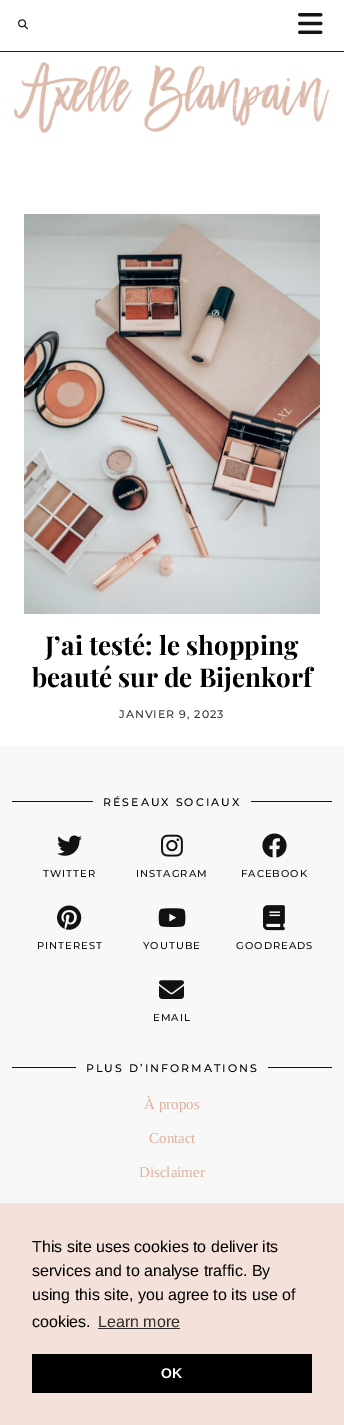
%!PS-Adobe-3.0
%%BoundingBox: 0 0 344 1425
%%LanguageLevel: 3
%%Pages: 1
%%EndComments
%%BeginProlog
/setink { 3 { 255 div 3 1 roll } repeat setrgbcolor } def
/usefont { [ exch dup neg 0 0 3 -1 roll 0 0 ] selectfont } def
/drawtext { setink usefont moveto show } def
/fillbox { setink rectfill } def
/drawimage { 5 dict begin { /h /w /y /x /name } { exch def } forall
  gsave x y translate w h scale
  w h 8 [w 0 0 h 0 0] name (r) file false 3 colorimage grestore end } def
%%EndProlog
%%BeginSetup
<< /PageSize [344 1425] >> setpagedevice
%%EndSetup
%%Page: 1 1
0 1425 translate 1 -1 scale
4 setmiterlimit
0 0 344 1425 255 255 255 fillbox
0 51 344 1 36 36 36 fillbox
(assets/img1.rgb) 18 19 10 11 drawimage
(assets/img2.rgb) 298 13 25 21 drawimage
(assets/img3.rgb) 13 61 316 73 drawimage
(assets/img4.rgb) 24 214 296 400 drawimage
(J’ai testé: le shopping) 45 655 /PlayfairDisplay-Bold 26 0 0 0 drawtext
(beauté sur de Bijenkorf) 32 687 /PlayfairDisplay-Bold 26 0 0 0 drawtext
/Montserrat-Thin 11 usefont
51 51 51 setink
119 718 moveto 1 0 (JANVIER 9, 2023) ashow
0 746 344 457 248 248 248 fillbox
12 801 320 1 17 17 17 fillbox
93 801 158 1 248 248 248 fillbox
0 0 0 setink
103 806 moveto 2 0 (RÉSEAUX SOCIAUX) ashow
(assets/img5.rgb) 57 835 25 21 drawimage
/Montserrat-Thin 10 usefont
17 17 17 setink
43 877 moveto 1 0 (TWITTER) ashow
(assets/img6.rgb) 161 834 22 23 drawimage
136 877 moveto 1 0 (INSTAGRAM) ashow
(assets/img7.rgb) 262 833 25 25 drawimage
241 877 moveto 1 0 (FACEBOOK) ashow
(assets/img8.rgb) 57 905 25 25 drawimage
37 949 moveto 1 0 (PINTEREST) ashow
(assets/img9.rgb) 158 908 28 19 drawimage
143 949 moveto 1 0 (YOUTUBE) ashow
(assets/img10.rgb) 263 905 22 26 drawimage
236 949 moveto 1 0 (GOODREADS) ashow
(assets/img11.rgb) 159 980 25 19 drawimage
153 1021 moveto 1 0 (EMAIL) ashow
12 1067 320 1 17 17 17 fillbox
76 1067 192 1 248 248 248 fillbox
/Montserrat-Thin 11 usefont
0 0 0 setink
86 1072 moveto 2 0 (PLUS D’INFORMATIONS) ashow
(À propos) 144 1109 /LiberationSerif-Regular 15 221 177 157 drawtext
(Contact) 149 1143 /LiberationSerif-Regular 15 221 177 157 drawtext
(Disclaimer) 139 1177 /LiberationSerif-Regular 15 221 177 157 drawtext
0 1203 344 222 243 225 218 fillbox
(This site uses cookies to deliver its) 32 1252 /LiberationSans-Regular 16 0 0 0 drawtext
(services and to analyse traffic. By) 32 1276 /LiberationSans-Regular 16 0 0 0 drawtext
(using this site, you agree to its use of) 32 1300 /LiberationSans-Regular 16 0 0 0 drawtext
(cookies.) 32 1327 /LiberationSans-Regular 16 0 0 0 drawtext
(Learn more) 98 1327 /LiberationSans-Regular 16 49 45 44 drawtext
98 1328 82 1 49 45 44 fillbox
32 1354 280 39 0 0 0 fillbox
(OK) 161 1378 /LiberationSans-Bold 14 255 255 255 drawtext
showpage
%%EOF
